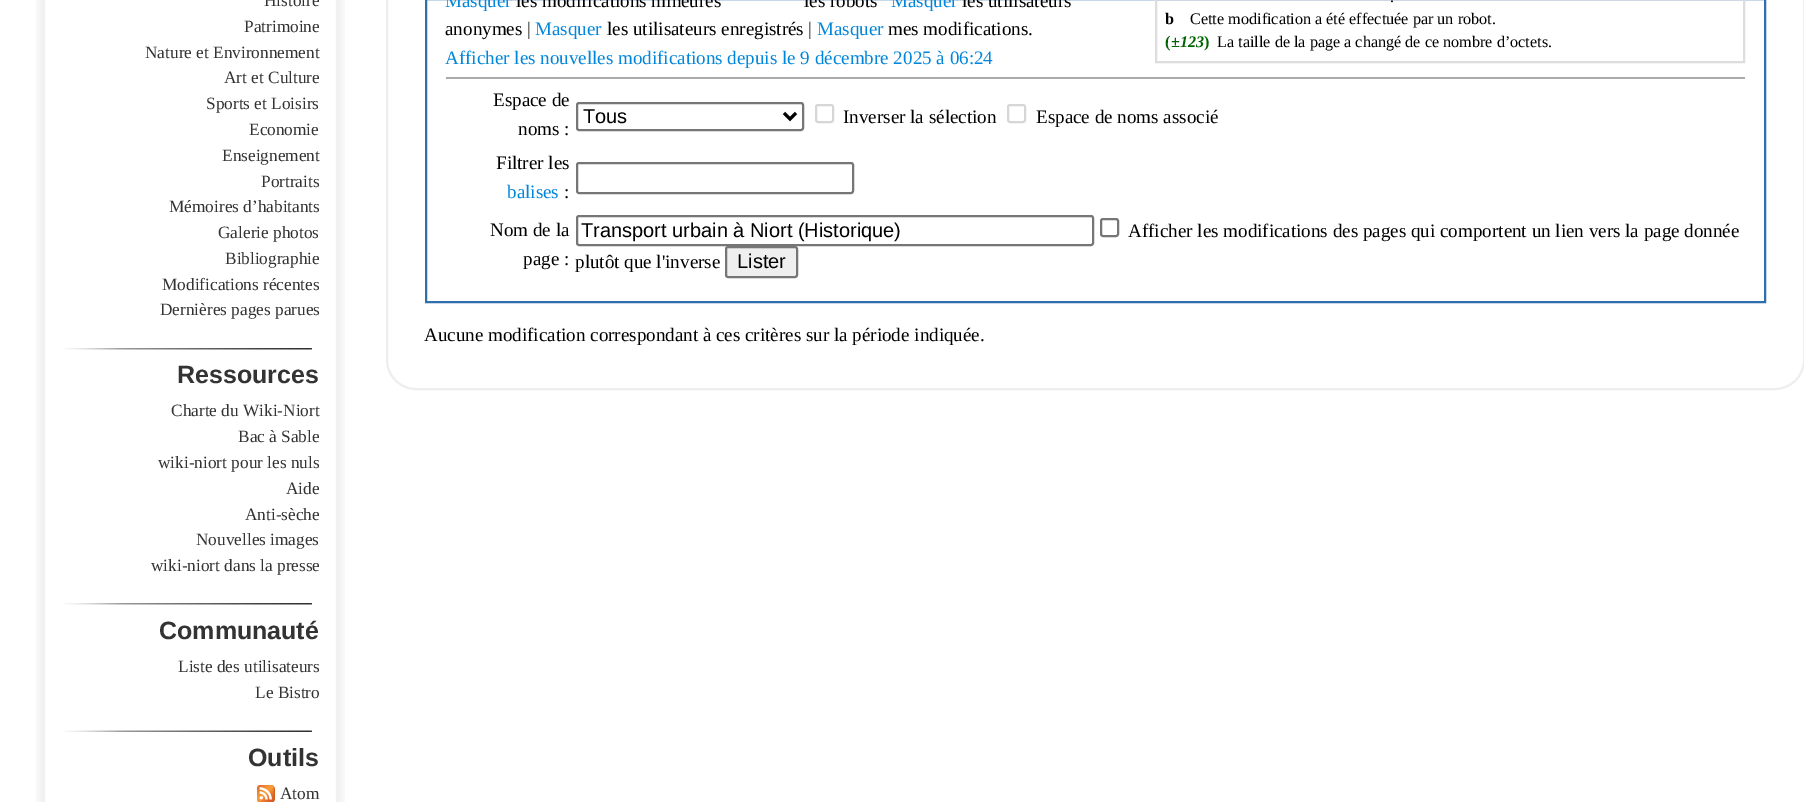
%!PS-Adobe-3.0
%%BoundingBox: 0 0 1804 802
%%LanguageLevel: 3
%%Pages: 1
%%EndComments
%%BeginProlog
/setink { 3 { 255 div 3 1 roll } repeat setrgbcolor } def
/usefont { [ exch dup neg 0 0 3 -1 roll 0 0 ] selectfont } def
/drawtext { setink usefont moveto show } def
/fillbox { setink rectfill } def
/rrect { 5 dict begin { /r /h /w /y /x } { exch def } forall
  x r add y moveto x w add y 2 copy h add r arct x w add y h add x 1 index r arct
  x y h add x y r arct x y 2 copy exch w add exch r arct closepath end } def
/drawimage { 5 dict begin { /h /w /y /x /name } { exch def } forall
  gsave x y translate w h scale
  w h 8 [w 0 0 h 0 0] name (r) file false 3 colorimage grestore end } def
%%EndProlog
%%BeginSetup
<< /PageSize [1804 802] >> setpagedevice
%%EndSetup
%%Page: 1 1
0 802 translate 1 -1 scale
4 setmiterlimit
0 0 1804 802 255 255 255 fillbox
(assets/img1.rgb) 36 0 309 802 drawimage
(Histoire) 264 6 /LiberationSerif-Regular 17.25 51 51 51 drawtext
(Patrimoine) 244 32 /LiberationSerif-Regular 17.25 51 51 51 drawtext
(Nature et Environnement) 145 58 /LiberationSerif-Regular 17.25 51 51 51 drawtext
(Art et Culture) 224 83 /LiberationSerif-Regular 17.25 51 51 51 drawtext
(Sports et Loisirs) 206 109 /LiberationSerif-Regular 17.25 51 51 51 drawtext
(Economie) 249 135 /LiberationSerif-Regular 17.25 51 51 51 drawtext
(Enseignement) 222 161 /LiberationSerif-Regular 17.25 51 51 51 drawtext
(Portraits) 261 187 /LiberationSerif-Regular 17.25 51 51 51 drawtext
(Mémoires d’habitants) 169 212 /LiberationSerif-Regular 17.25 51 51 51 drawtext
(Galerie photos) 218 238 /LiberationSerif-Regular 17.25 51 51 51 drawtext
(Bibliographie) 225 264 /LiberationSerif-Regular 17.25 51 51 51 drawtext
(Modifications récentes) 162 290 /LiberationSerif-Regular 17.25 51 51 51 drawtext
(Dernières pages parues) 160 315 /LiberationSerif-Regular 17.25 51 51 51 drawtext
(assets/img2.rgb) 64 348 248 2 drawimage
(Ressources) 177 383 /LiberationSans-Bold 25 51 51 51 drawtext
(Charte du Wiki-Niort) 171 416 /LiberationSerif-Regular 17.25 51 51 51 drawtext
(Bac à Sable) 238 442 /LiberationSerif-Regular 17.25 51 51 51 drawtext
(wiki-niort pour les nuls) 158 468 /LiberationSerif-Regular 17.25 51 51 51 drawtext
(Aide) 286 494 /LiberationSerif-Regular 17.25 51 51 51 drawtext
(Anti-sèche) 245 520 /LiberationSerif-Regular 17.25 51 51 51 drawtext
(Nouvelles images) 196 545 /LiberationSerif-Regular 17.25 51 51 51 drawtext
(wiki-niort dans la presse) 151 571 /LiberationSerif-Regular 17.25 51 51 51 drawtext
(assets/img2.rgb) 64 603 248 2 drawimage
(Communauté) 159 639 /LiberationSans-Bold 25 51 51 51 drawtext
(Liste des utilisateurs) 178 672 /LiberationSerif-Regular 17.25 51 51 51 drawtext
(Le Bistro) 255 698 /LiberationSerif-Regular 17.25 51 51 51 drawtext
(assets/img3.rgb) 64 730 248 2 drawimage
(Outils) 248 766 /LiberationSans-Bold 25 51 51 51 drawtext
(assets/img4.rgb) 257 785 18 17 drawimage
(Atom) 280 799 /LiberationSerif-Regular 17.25 51 51 51 drawtext
238 238 238 setink
2 setlinewidth
387 -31 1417 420 29 rrect stroke
47 111 171 setink
426 -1 1339 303 rectstroke
(Masquer) 445 7 /LiberationSerif-Regular 19.05 0 134 219 drawtext
(les modifications mineures) 516 7 /LiberationSerif-Regular 19.05 0 0 0 drawtext
(les robots) 804 7 /LiberationSerif-Regular 19.05 0 0 0 drawtext
(Masquer) 891 7 /LiberationSerif-Regular 19.05 0 134 219 drawtext
(les utilisateurs) 962 7 /LiberationSerif-Regular 19.05 0 0 0 drawtext
221 221 221 setink
1156 -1 588 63 rectstroke
(.) 1390 2 /LiberationSerif-Regular 16.2 0 0 0 drawtext
(b) 1165 24 /LiberationSerif-Bold 16.2 0 0 0 drawtext
(Cette modification a été effectuée par un robot.) 1190 24 /LiberationSerif-Regular 16.2 0 0 0 drawtext
(\() 1165 47 /LiberationSerif-Bold 16.2 0 100 0 drawtext
(±123) 1171 47 /LiberationSerif-BoldItalic 16.2 0 100 0 drawtext
(\)) 1204 47 /LiberationSerif-Bold 16.2 0 100 0 drawtext
(La taille de la page a changé de ce nombre d’octets.) 1217 47 /LiberationSerif-Regular 16.2 0 0 0 drawtext
(anonymes |) 445 35 /LiberationSerif-Regular 19.05 0 0 0 drawtext
(Masquer) 535 35 /LiberationSerif-Regular 19.05 0 134 219 drawtext
(les utilisateurs enregistrés |) 607 35 /LiberationSerif-Regular 19.05 0 0 0 drawtext
(Masquer) 817 35 /LiberationSerif-Regular 19.05 0 134 219 drawtext
(mes modifications.) 888 35 /LiberationSerif-Regular 19.05 0 0 0 drawtext
(Afficher les nouvelles modifications depuis le 9 décembre 2025 à 06:24) 445 64 /LiberationSerif-Regular 19.05 0 134 219 drawtext
446 77 1299 2 170 170 170 fillbox
(Espace de) 493 106 /LiberationSerif-Regular 19.05 0 0 0 drawtext
(noms :) 518 135 /LiberationSerif-Regular 19.05 0 0 0 drawtext
118 118 118 setink
577 103 226 27 2 rrect stroke
0 0 0 setink
3 setlinewidth
784 113 moveto 790 119 lineto 796 113 lineto stroke
(Tous) 583 123 /LiberationSans-Regular 20 0 0 0 drawtext
214 214 214 setink
2 setlinewidth
816 105 17 17 2 rrect stroke
(Inverser la sélection) 843 123 /LiberationSerif-Regular 19.05 0 0 0 drawtext
214 214 214 setink
1008 105 17 17 2 rrect stroke
(Espace de noms associé) 1036 123 /LiberationSerif-Regular 19.05 0 0 0 drawtext
(Filtrer les) 496 169 /LiberationSerif-Regular 19.05 0 0 0 drawtext
(balises) 507 198 /LiberationSerif-Regular 19.05 0 134 219 drawtext
(:) 564 198 /LiberationSerif-Regular 19.05 0 0 0 drawtext
118 118 118 setink
577 163 276 30 2 rrect stroke
(Nom de la) 490 236 /LiberationSerif-Regular 19.05 0 0 0 drawtext
(page :) 523 265 /LiberationSerif-Regular 19.05 0 0 0 drawtext
118 118 118 setink
577 216 516 29 2 rrect stroke
(Transport urbain à Niort \(Historique\)) 581 237 /LiberationSans-Regular 20 0 0 0 drawtext
118 118 118 setink
1101 219 17 17 2 rrect stroke
(Afficher les modifications des pages qui comportent un lien vers la page donnée) 1128 237 /LiberationSerif-Regular 19.05 0 0 0 drawtext
(plutôt que l'inverse) 575 268 /LiberationSerif-Regular 19.05 0 0 0 drawtext
239 239 239 setink
726 247 71 30 2 rrect gsave fill grestore
118 118 118 setink
stroke
(Lister) 737 268 /LiberationSans-Regular 20 0 0 0 drawtext
(Aucune modification correspondant à ces critères sur la période indiquée.) 424 341 /LiberationSerif-Regular 19.05 0 0 0 drawtext
showpage
%%EOF
